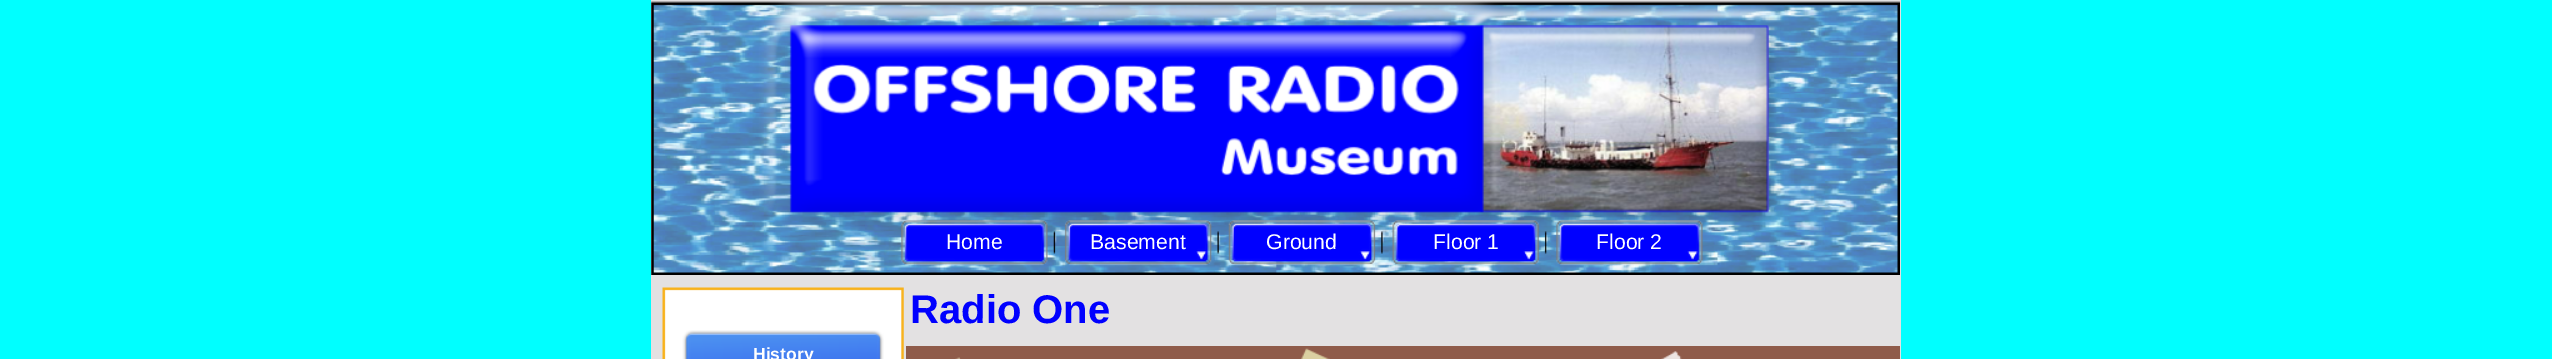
%!PS-Adobe-3.0
%%BoundingBox: 0 0 2552 359
%%LanguageLevel: 3
%%Pages: 1
%%EndComments
%%BeginProlog
/setink { 3 { 255 div 3 1 roll } repeat setrgbcolor } def
/usefont { [ exch dup neg 0 0 3 -1 roll 0 0 ] selectfont } def
/drawtext { setink usefont moveto show } def
/fillbox { setink rectfill } def
/drawimage { 5 dict begin { /h /w /y /x /name } { exch def } forall
  gsave x y translate w h scale
  w h 8 [w 0 0 h 0 0] name (r) file false 3 colorimage grestore end } def
%%EndProlog
%%BeginSetup
<< /PageSize [2552 359] >> setpagedevice
%%EndSetup
%%Page: 1 1
0 359 translate 1 -1 scale
4 setmiterlimit
0 0 2552 359 0 255 255 fillbox
651 0 1250 359 227 225 226 fillbox
(assets/img1.rgb) 651 0 1249 275 drawimage
(assets/img2.rgb) 1053 231 495 23 drawimage
(assets/img3.rgb) 901 220 147 46 drawimage
(Home) 946 249 /LiberationSans-Regular 21.25 255 255 255 drawtext
(assets/img4.rgb) 1064 220 148 46 drawimage
(Basement) 1090 249 /LiberationSans-Regular 21.25 255 255 255 drawtext
(assets/img5.rgb) 1228 220 148 46 drawimage
(Ground) 1266 249 /LiberationSans-Regular 21.25 255 255 255 drawtext
(assets/img6.rgb) 1392 220 147 46 drawimage
(Floor 1) 1433 249 /LiberationSans-Regular 21.25 255 255 255 drawtext
(assets/img7.rgb) 1556 220 147 46 drawimage
(Floor 2) 1596 249 /LiberationSans-Regular 21.25 255 255 255 drawtext
(Radio One) 910 323 /LiberationSans-Bold 40 0 0 255 drawtext
(assets/img8.rgb) 662 287 242 72 drawimage
(assets/img9.rgb) 682 330 202 29 drawimage
(History) 753 360 /LiberationSans-Bold 17.5 255 255 255 drawtext
906 346 994 13 143 91 74 fillbox
(assets/img10.rgb) 955 357 6 2 drawimage
(assets/img11.rgb) 1301 348 29 11 drawimage
(assets/img12.rgb) 1661 351 21 8 drawimage
showpage
%%EOF
